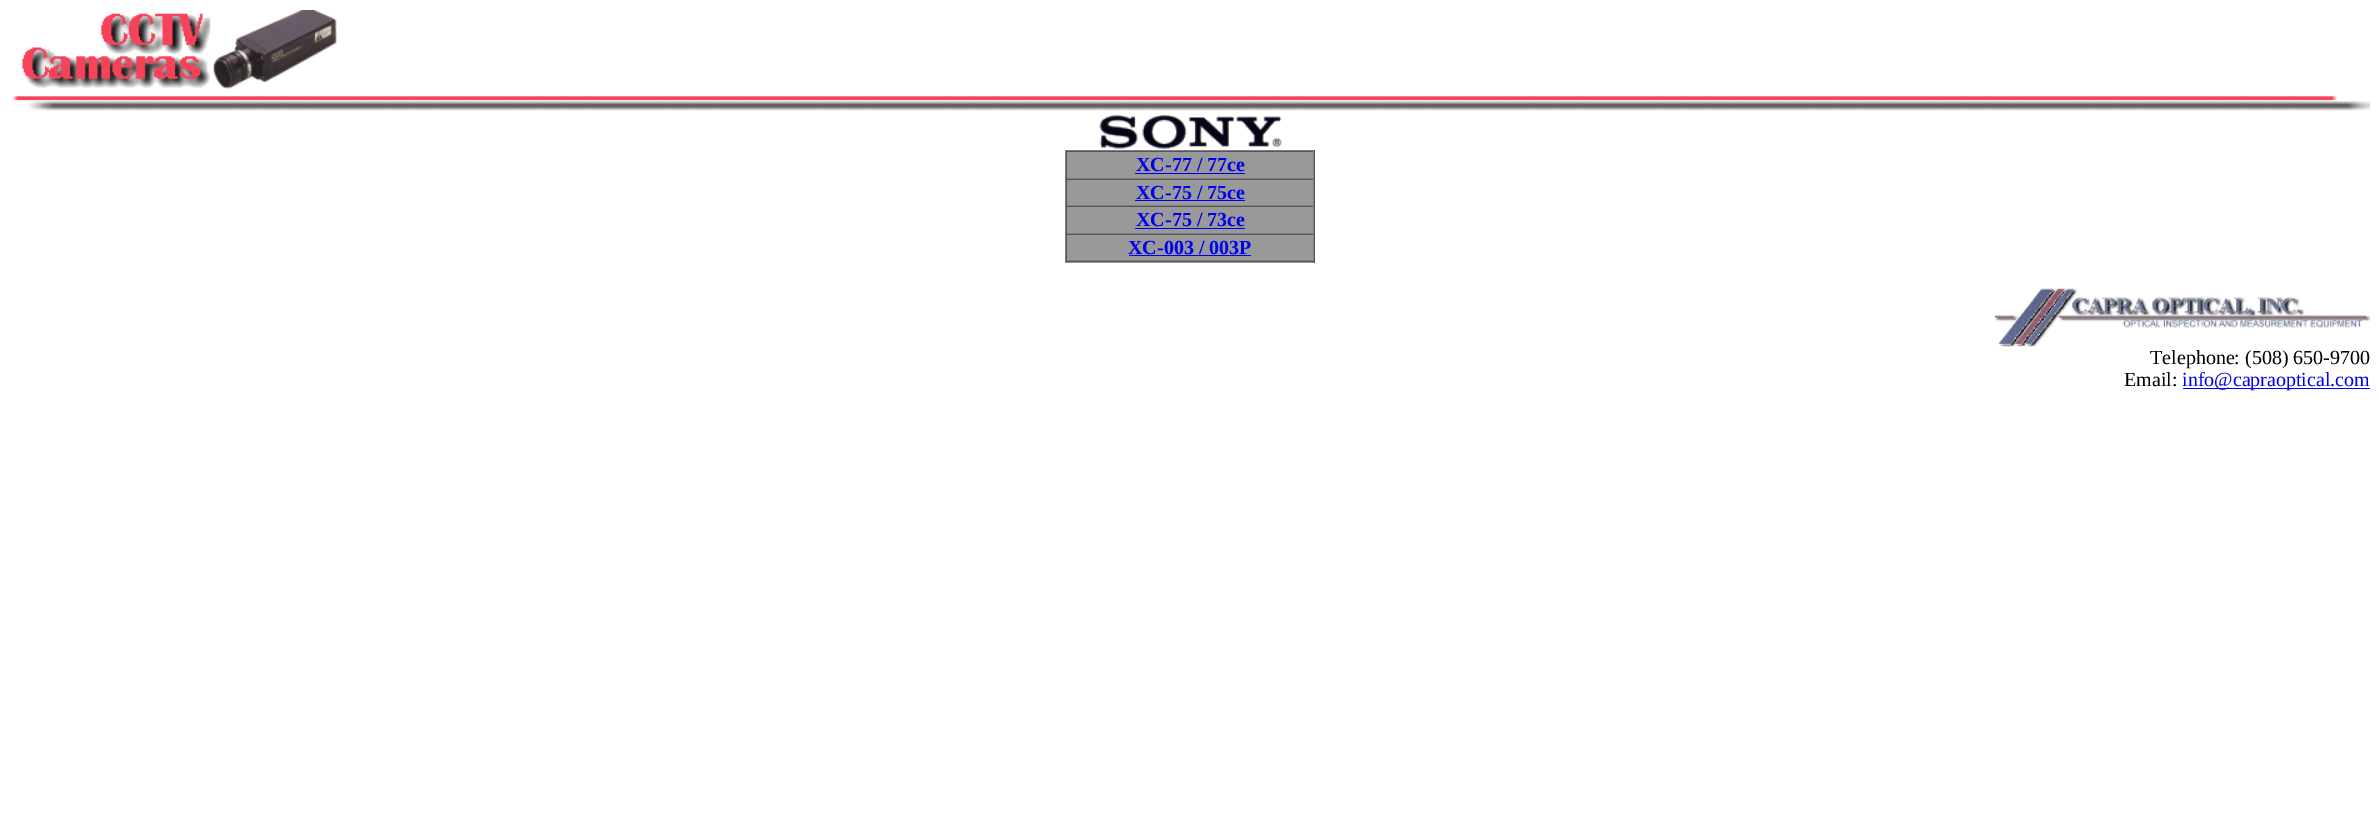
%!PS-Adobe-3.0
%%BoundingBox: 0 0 2379 832
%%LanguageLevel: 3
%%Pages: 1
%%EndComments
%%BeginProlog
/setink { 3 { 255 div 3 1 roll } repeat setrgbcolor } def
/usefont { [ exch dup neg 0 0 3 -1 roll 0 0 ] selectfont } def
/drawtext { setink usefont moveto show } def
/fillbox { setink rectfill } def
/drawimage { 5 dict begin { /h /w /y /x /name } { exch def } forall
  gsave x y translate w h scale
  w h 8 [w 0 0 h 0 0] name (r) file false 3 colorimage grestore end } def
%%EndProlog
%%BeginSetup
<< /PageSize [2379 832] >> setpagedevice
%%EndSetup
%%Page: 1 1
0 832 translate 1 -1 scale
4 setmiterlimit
0 0 2379 832 255 255 255 fillbox
(assets/img1.rgb) 22 10 315 79 drawimage
(assets/img2.rgb) 13 96 2357 15 drawimage
(assets/img3.rgb) 1098 114 184 35 drawimage
1066 152 248 111 153 153 153 fillbox
1065 150 250 1 128 128 128 fillbox
1314 150 1 113 85 85 85 fillbox
1065 261 250 1 85 85 85 fillbox
1065 150 1 113 128 128 128 fillbox
1066 151 248 1 85 85 85 fillbox
1313 151 1 28 128 128 128 fillbox
1066 178 248 1 128 128 128 fillbox
1066 151 1 28 85 85 85 fillbox
(XC-77 / 77ce) 1136 171 /LiberationSerif-Bold 20 0 0 238 drawtext
1135 173 110 1 0 0 238 fillbox
1066 179 248 1 85 85 85 fillbox
1313 179 1 27 128 128 128 fillbox
1066 205 248 1 128 128 128 fillbox
1066 179 1 27 85 85 85 fillbox
(XC-75 / 75ce) 1136 199 /LiberationSerif-Bold 20 0 0 238 drawtext
1135 200 110 1 0 0 238 fillbox
1066 206 248 1 85 85 85 fillbox
1313 206 1 28 128 128 128 fillbox
1066 233 248 1 128 128 128 fillbox
1066 206 1 28 85 85 85 fillbox
(XC-75 / 73ce) 1136 226 /LiberationSerif-Bold 20 0 0 238 drawtext
1135 228 110 1 0 0 238 fillbox
1066 234 248 1 85 85 85 fillbox
1313 234 1 27 128 128 128 fillbox
1066 260 248 1 128 128 128 fillbox
1066 234 1 27 85 85 85 fillbox
(XC-003 / 003P) 1128 254 /LiberationSerif-Bold 20 0 0 238 drawtext
1129 255 122 1 0 0 238 fillbox
(assets/img4.rgb) 1995 288 375 59 drawimage
(Telephone: \(508\) 650-9700) 2150 364 /LiberationSerif-Regular 20 0 0 0 drawtext
(Email:) 2124 386 /LiberationSerif-Regular 20 0 0 0 drawtext
2183 388 187 1 0 0 238 fillbox
(info@capraoptical.com) 2182 386 /LiberationSerif-Regular 20 0 0 238 drawtext
showpage
%%EOF
